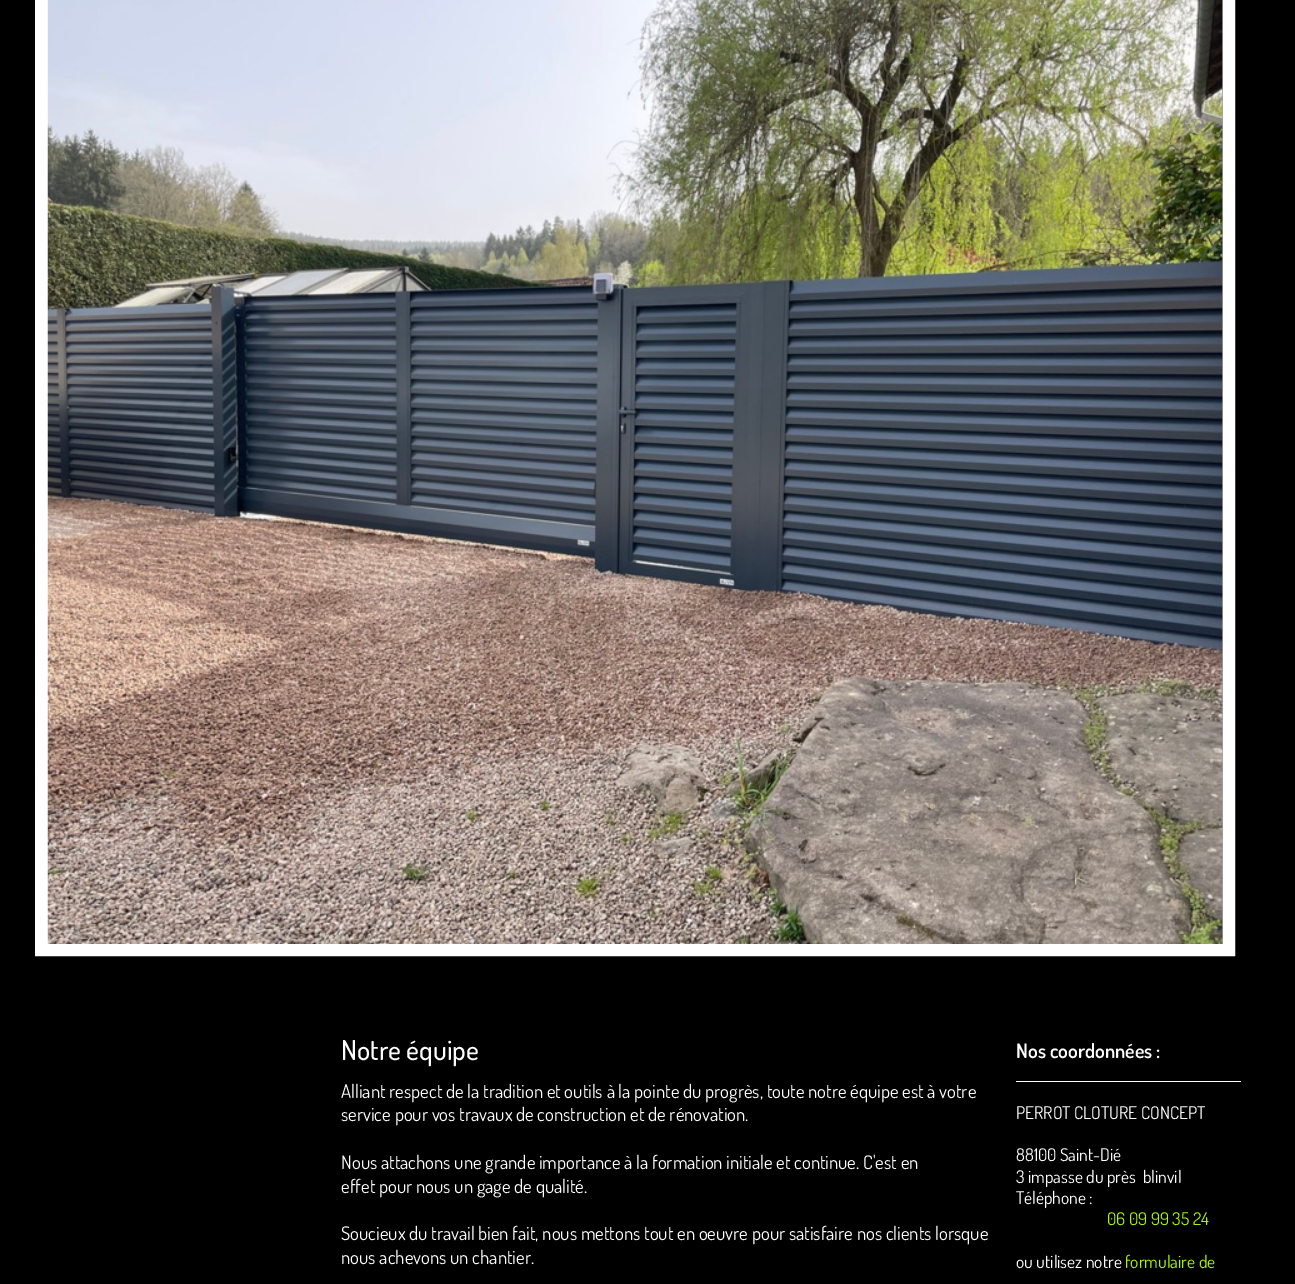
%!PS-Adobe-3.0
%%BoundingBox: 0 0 1295 1284
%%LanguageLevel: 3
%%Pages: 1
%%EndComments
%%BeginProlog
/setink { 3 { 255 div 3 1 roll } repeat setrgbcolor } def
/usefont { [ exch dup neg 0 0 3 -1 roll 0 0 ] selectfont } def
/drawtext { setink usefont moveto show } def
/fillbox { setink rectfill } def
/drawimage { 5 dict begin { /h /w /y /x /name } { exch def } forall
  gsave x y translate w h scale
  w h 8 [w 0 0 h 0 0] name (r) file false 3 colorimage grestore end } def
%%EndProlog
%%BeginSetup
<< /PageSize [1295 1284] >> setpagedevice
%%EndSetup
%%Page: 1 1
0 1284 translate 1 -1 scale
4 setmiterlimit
0 0 1295 1284 0 0 0 fillbox
255 255 255 setink
13 setlinewidth
41.5 -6.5 1187 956 rectstroke
1222 0 1 944 160 160 160 fillbox
(assets/img1.rgb) 47 0 1176 944 drawimage
(Notre équipe) 341 1060 /Dosis-Medium 27.5 255 255 255 drawtext
(Alliant respect de la tradition et outils à la pointe du progrès, toute notre équipe est à votre) 341 1098 /Dosis-Regular 18.75 255 255 255 drawtext
(service pour vos travaux de construction et de rénovation.) 341 1121 /Dosis-Regular 18.75 255 255 255 drawtext
(Nous attachons une grande importance à la formation initiale et continue. C'est en) 341 1169 /Dosis-Regular 18.75 255 255 255 drawtext
(effet pour nous un gage de qualité.) 341 1193 /Dosis-Regular 18.75 255 255 255 drawtext
(Soucieux du travail bien fait, nous mettons tout en oeuvre pour satisfaire nos clients lorsque) 341 1240 /Dosis-Regular 18.75 255 255 255 drawtext
(nous achevons un chantier.) 341 1264 /Dosis-Regular 18.75 255 255 255 drawtext
(Nos coordonnées :) 1016 1058 /Dosis-SemiBold 20 255 255 255 drawtext
1016 1081 225 1 255 255 255 fillbox
(PERROT CLOTURE CONCEPT) 1016 1119 /Dosis-Regular 17.5 255 255 255 drawtext
(88100 Saint-Dié) 1016 1161 /Dosis-Regular 17.5 255 255 255 drawtext
(3 impasse du près  blinvil) 1016 1183 /Dosis-Regular 17.5 255 255 255 drawtext
(Téléphone :) 1016 1204 /Dosis-Regular 17.5 255 255 255 drawtext
(06 09 99 35 24) 1107 1225 /Dosis-Regular 17.5 167 247 0 drawtext
(ou utilisez notre) 1016 1268 /Dosis-Regular 17.5 255 255 255 drawtext
(formulaire de) 1125 1268 /Dosis-Regular 17.5 167 247 0 drawtext
showpage
%%EOF
